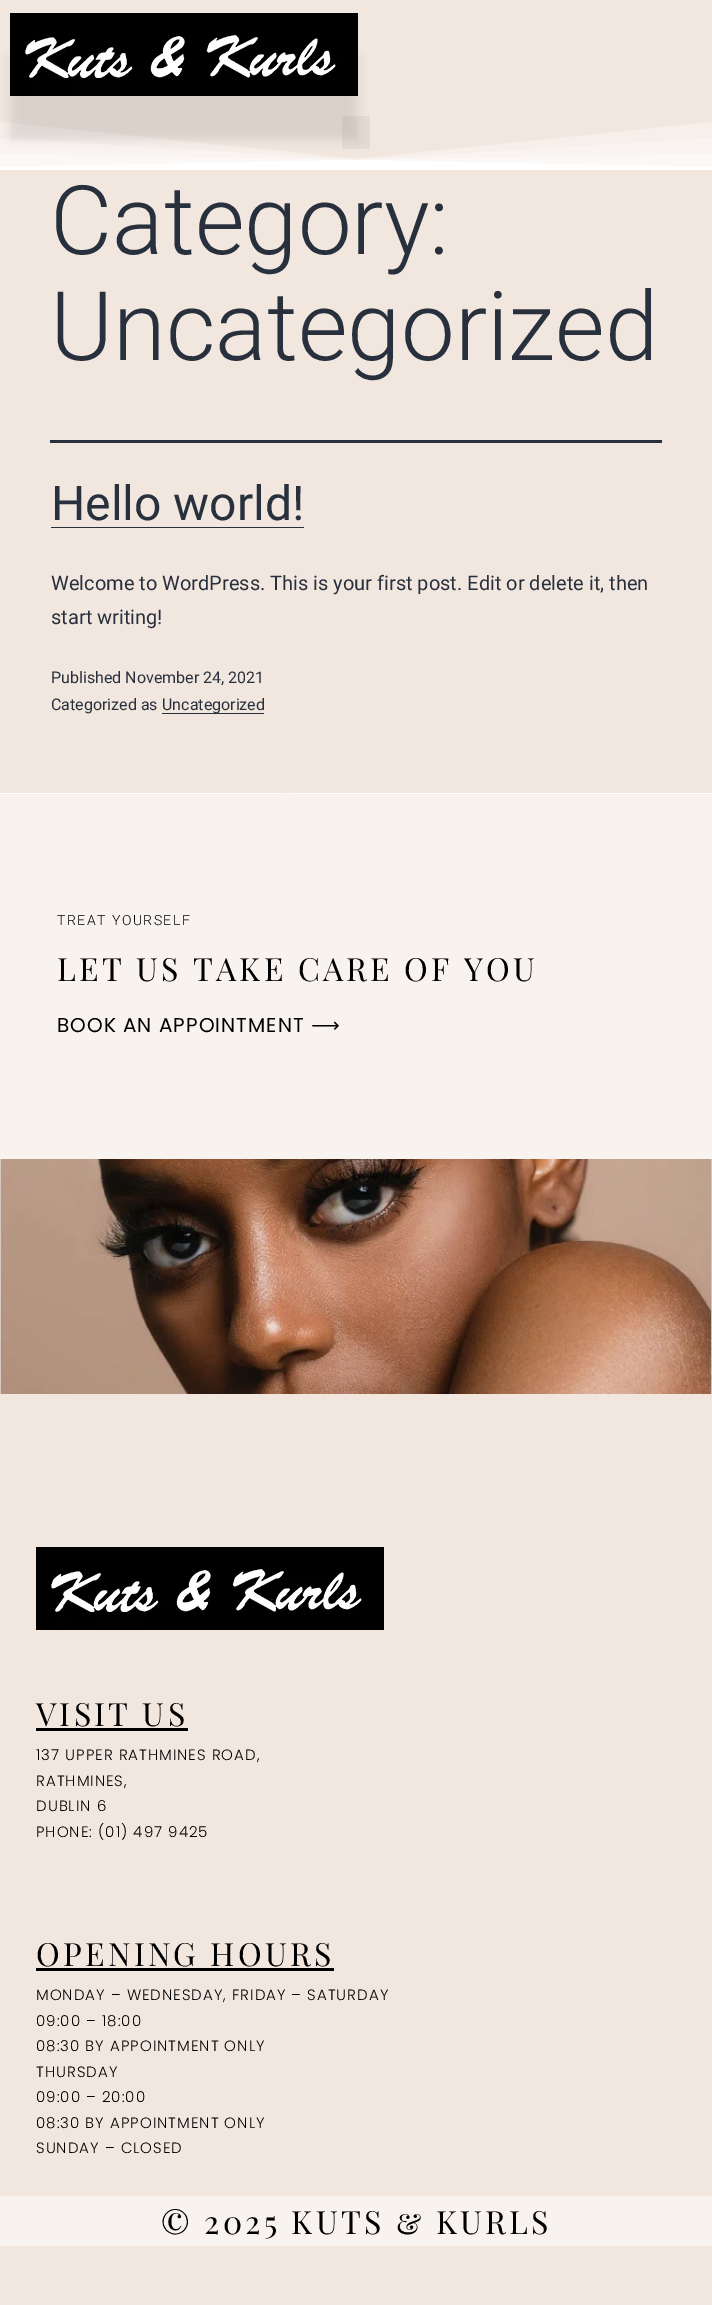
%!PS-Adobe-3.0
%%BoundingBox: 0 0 712 2305
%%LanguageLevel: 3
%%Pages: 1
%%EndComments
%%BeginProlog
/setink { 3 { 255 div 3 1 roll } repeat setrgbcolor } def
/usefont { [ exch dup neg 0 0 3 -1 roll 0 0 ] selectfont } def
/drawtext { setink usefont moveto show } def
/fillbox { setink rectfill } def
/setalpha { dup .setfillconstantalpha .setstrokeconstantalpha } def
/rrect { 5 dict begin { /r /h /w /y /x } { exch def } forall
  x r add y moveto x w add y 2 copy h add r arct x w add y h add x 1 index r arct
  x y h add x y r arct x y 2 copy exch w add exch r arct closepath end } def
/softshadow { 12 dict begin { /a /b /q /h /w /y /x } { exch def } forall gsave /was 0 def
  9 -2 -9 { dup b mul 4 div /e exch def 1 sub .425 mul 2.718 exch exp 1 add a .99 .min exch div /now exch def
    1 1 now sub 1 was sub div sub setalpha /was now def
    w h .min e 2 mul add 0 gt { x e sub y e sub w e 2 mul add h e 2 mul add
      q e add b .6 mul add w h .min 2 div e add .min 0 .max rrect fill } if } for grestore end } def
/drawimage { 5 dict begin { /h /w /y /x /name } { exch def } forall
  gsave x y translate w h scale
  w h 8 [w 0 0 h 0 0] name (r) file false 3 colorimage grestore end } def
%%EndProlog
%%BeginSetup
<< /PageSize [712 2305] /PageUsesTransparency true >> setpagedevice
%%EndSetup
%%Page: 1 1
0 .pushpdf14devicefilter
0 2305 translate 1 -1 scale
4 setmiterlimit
0 0 712 2305 242 231 223 fillbox
246 239 234 setink
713 170 moveto 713 122 lineto 356 159 lineto -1 122 lineto -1 170 lineto closepath fill
249 244 241 setink
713 170 moveto 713 138 lineto 356 160 lineto -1 138 lineto -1 170 lineto closepath fill
251 248 246 setink
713 170 moveto 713 154 lineto 356 160 lineto -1 154 lineto -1 170 lineto closepath fill
0 0 0 setink
10 57 348 83 0 5 0.09 softshadow
(assets/img1.rgb) 10 13 348 83 drawimage
0.05 setalpha
342 116 28 33 0 0 0 fillbox
1 setalpha
255 255 255 setink
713 170 moveto 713 167 lineto 356 160 lineto -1 167 lineto -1 170 lineto closepath fill
50 440 612 3 40 48 61 fillbox
(Category:) 50 254 /Roboto-Light 96 40 48 61 drawtext
(Uncategorized) 50 360 /Roboto-Light 96 40 48 61 drawtext
(Hello world!) 51 520 /Roboto-Regular 48 40 48 61 drawtext
51 527 253 1 40 48 61 fillbox
(Welcome to WordPress. This is your first post. Edit or delete it, then) 51 590 /Roboto-Regular 20 40 48 61 drawtext
(start writing!) 51 624 /Roboto-Regular 20 40 48 61 drawtext
(Published November 24, 2021) 51 683 /Roboto-Regular 16 40 48 61 drawtext
(Categorized as) 51 710 /Roboto-Regular 16 40 48 61 drawtext
162 713 102 1 40 48 61 fillbox
(Uncategorized) 162 710 /Roboto-Regular 16 40 48 61 drawtext
(assets/img2.rgb) 0 793 712 1 drawimage
0 794 712 365 248 243 239 fillbox
/Roboto-Light 14 usefont
0 0 0 setink
57 925 moveto 1.5 0 (TREAT YOURSELF) ashow
/PlayfairDisplaySC-Regular 32 usefont
57 981 moveto 3.25 0 (LET US TAKE CARE OF YOU) ashow
/Poppins-Regular 20 usefont
57 1032 moveto 1 0 (BOOK AN APPOINTMENT) ashow
/DejaVuSans-Regular 20 usefont
311 1032 moveto 1 0 (⟶) ashow
(assets/img3.rgb) 0 1159 712 235 drawimage
(assets/img1.rgb) 36 1547 348 83 drawimage
/PlayfairDisplaySC-Regular 32 usefont
36 1726 moveto 3.25 0 (VISIT US) ashow
36 1728 152 3 0 0 0 fillbox
/Poppins-Light 15 usefont
36 1760 moveto 1 0 (137 UPPER RATHMINES ROAD,) ashow
36 1786 moveto 1 0 (RATHMINES,) ashow
36 1811 moveto 1 0 (DUBLIN 6) ashow
36 1837 moveto 1 0 (PHONE: \(01\) 497 9425) ashow
/PlayfairDisplaySC-Regular 32 usefont
36 1966 moveto 3.25 0 (OPENING HOURS) ashow
36 1968 298 3 0 0 0 fillbox
/Poppins-Light 15 usefont
36 2000 moveto 1 0 (MONDAY – WEDNESDAY, FRIDAY – SATURDAY) ashow
36 2026 moveto 1 0 (09:00 – 18:00) ashow
36 2051 moveto 1 0 (08:30 BY APPOINTMENT ONLY) ashow
36 2077 moveto 1 0 (THURSDAY) ashow
36 2102 moveto 1 0 (09:00 – 20:00) ashow
36 2128 moveto 1 0 (08:30 BY APPOINTMENT ONLY) ashow
36 2153 moveto 1 0 (SUNDAY – CLOSED) ashow
0 2196 712 50 248 243 239 fillbox
/PlayfairDisplaySC-Regular 32 usefont
0 0 0 setink
161 2234 moveto 3.25 0 (© 2025 KUTS & KURLS) ashow
.poppdf14devicefilter showpage
%%EOF
